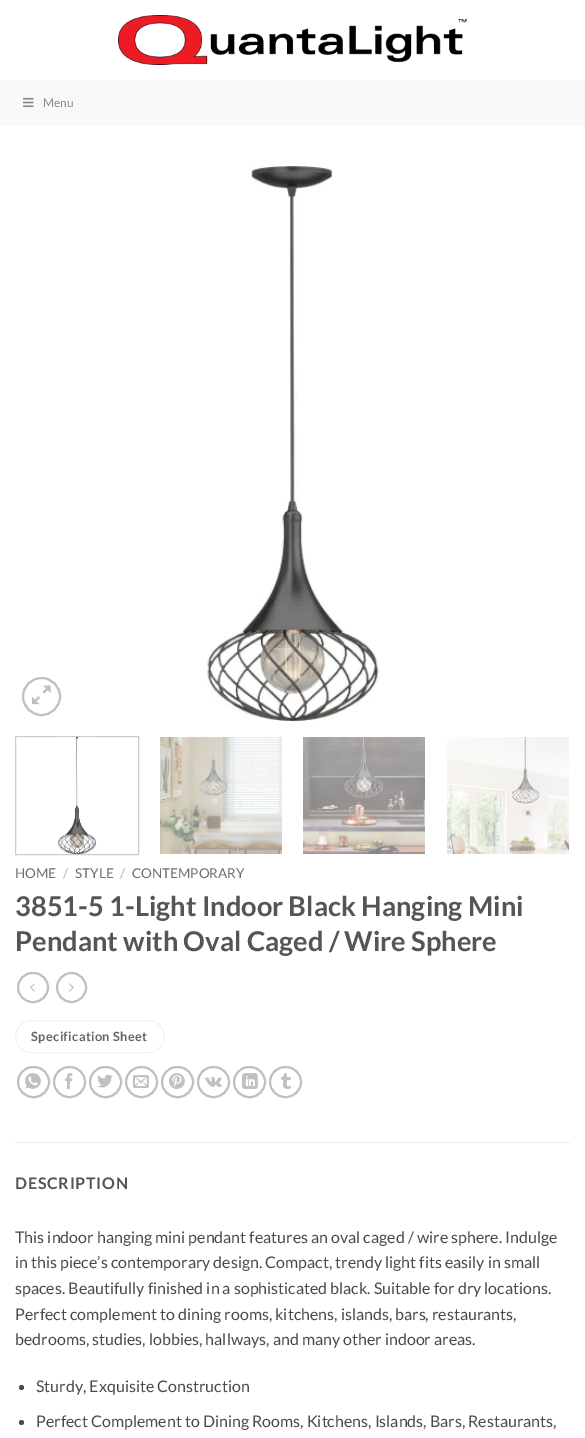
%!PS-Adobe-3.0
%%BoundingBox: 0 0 585 1438
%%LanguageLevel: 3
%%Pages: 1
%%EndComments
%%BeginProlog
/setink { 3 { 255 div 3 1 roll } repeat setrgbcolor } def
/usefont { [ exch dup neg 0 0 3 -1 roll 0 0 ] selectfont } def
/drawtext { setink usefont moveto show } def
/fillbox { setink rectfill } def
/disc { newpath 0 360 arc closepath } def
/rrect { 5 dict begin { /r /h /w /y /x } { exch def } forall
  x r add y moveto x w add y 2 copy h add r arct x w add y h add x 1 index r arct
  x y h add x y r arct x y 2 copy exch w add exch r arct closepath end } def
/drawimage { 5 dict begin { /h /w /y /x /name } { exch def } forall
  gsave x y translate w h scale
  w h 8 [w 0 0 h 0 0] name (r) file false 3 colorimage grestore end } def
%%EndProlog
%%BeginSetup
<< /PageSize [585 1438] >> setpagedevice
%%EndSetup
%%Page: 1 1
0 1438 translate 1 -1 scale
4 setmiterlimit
0 0 585 1438 255 255 255 fillbox
(assets/img1.rgb) 118 15 349 50 drawimage
0 80 585 46 249 249 249 fillbox
(assets/img2.rgb) 23 97 11 11 drawimage
(Menu) 43 107 /Lato-Regular 12 136 136 136 drawtext
192 192 192 setink
2 setlinewidth
41.5 696.5 18.5 disc stroke
(assets/img3.rgb) 32 685 19 20 drawimage
(assets/img4.rgb) 207 166 174 555 drawimage
204 204 204 setink
1 setlinewidth
15.5 736.5 123 118 rectstroke
(assets/img5.rgb) 58 737 39 117 drawimage
(assets/img6.rgb) 160 737 122 117 drawimage
(assets/img7.rgb) 303 737 122 117 drawimage
(assets/img8.rgb) 447 737 122 117 drawimage
(HOME) 15 878 /Lato-Regular 13.5 110 110 110 drawtext
(/) 63 878 /Lato-Regular 13.5 178 178 178 drawtext
(STYLE) 75 878 /Lato-Regular 13.5 110 110 110 drawtext
(/) 120 878 /Lato-Regular 13.5 178 178 178 drawtext
(CONTEMPORARY) 132 878 /Lato-Regular 13.5 110 110 110 drawtext
(3851-5 1-Light Indoor Black Hanging Mini) 15 916 /Lato-Bold 27.25 85 85 85 drawtext
(Pendant with Oval Caged / Wire Sphere) 15 951 /Lato-Bold 27.25 85 85 85 drawtext
192 192 192 setink
2 setlinewidth
18 973 30 29 14.5 rrect stroke
(assets/img9.rgb) 30 983 5 9 drawimage
71.5 987.5 14.5 disc stroke
(assets/img10.rgb) 69 983 5 9 drawimage
242 242 242 setink
1 setlinewidth
15.5 1020.5 149 32 16 rrect stroke
/Lato-Bold 12.75 usefont
102 102 102 setink
31 1041 moveto 0.4 0 (Specification Sheet) ashow
192 192 192 setink
2 setlinewidth
18 1067 31 30 15 rrect stroke
(assets/img11.rgb) 25 1073 16 16 drawimage
54 1067 31 30 15 rrect stroke
(assets/img12.rgb) 65 1073 8 16 drawimage
90 1067 31 30 15 rrect stroke
(assets/img13.rgb) 97 1074 16 14 drawimage
126 1067 31 30 15 rrect stroke
(assets/img14.rgb) 133 1075 16 13 drawimage
162 1067 31 30 15 rrect stroke
(assets/img15.rgb) 169 1073 16 16 drawimage
198 1067 31 30 15 rrect stroke
(assets/img16.rgb) 205 1077 17 10 drawimage
234 1067 31 30 15 rrect stroke
(assets/img17.rgb) 242 1073 16 16 drawimage
270 1067 31 30 15 rrect stroke
(assets/img18.rgb) 281 1073 10 16 drawimage
15 1142 555 1 236 236 236 fillbox
/Lato-Bold 16 usefont
85 85 85 setink
15 1189 moveto 0.75 0 (DESCRIPTION) ashow
(This indoor hanging mini pendant features an oval caged / wire sphere. Indulge) 15 1243 /Lato-Regular 16 74 74 74 drawtext
(in this piece’s contemporary design. Compact, trendy light fits easily in small) 15 1268 /Lato-Regular 16 74 74 74 drawtext
(spaces. Beautifully finished in a sophisticated black. Suitable for dry locations.) 15 1294 /Lato-Regular 16 74 74 74 drawtext
(Perfect complement to dining rooms, kitchens, islands, bars, restaurants,) 15 1320 /Lato-Regular 16 74 74 74 drawtext
(bedrooms, studies, lobbies, hallways, and many other indoor areas.) 15 1345 /Lato-Regular 16 74 74 74 drawtext
21.5 1387.5 2.5 disc fill
(Sturdy, Exquisite Construction) 36 1392 /Lato-Regular 16 74 74 74 drawtext
21.5 1422.5 2.5 disc fill
(Perfect Complement to Dining Rooms, Kitchens, Islands, Bars, Restaurants,) 36 1427 /Lato-Regular 16 74 74 74 drawtext
showpage
%%EOF
